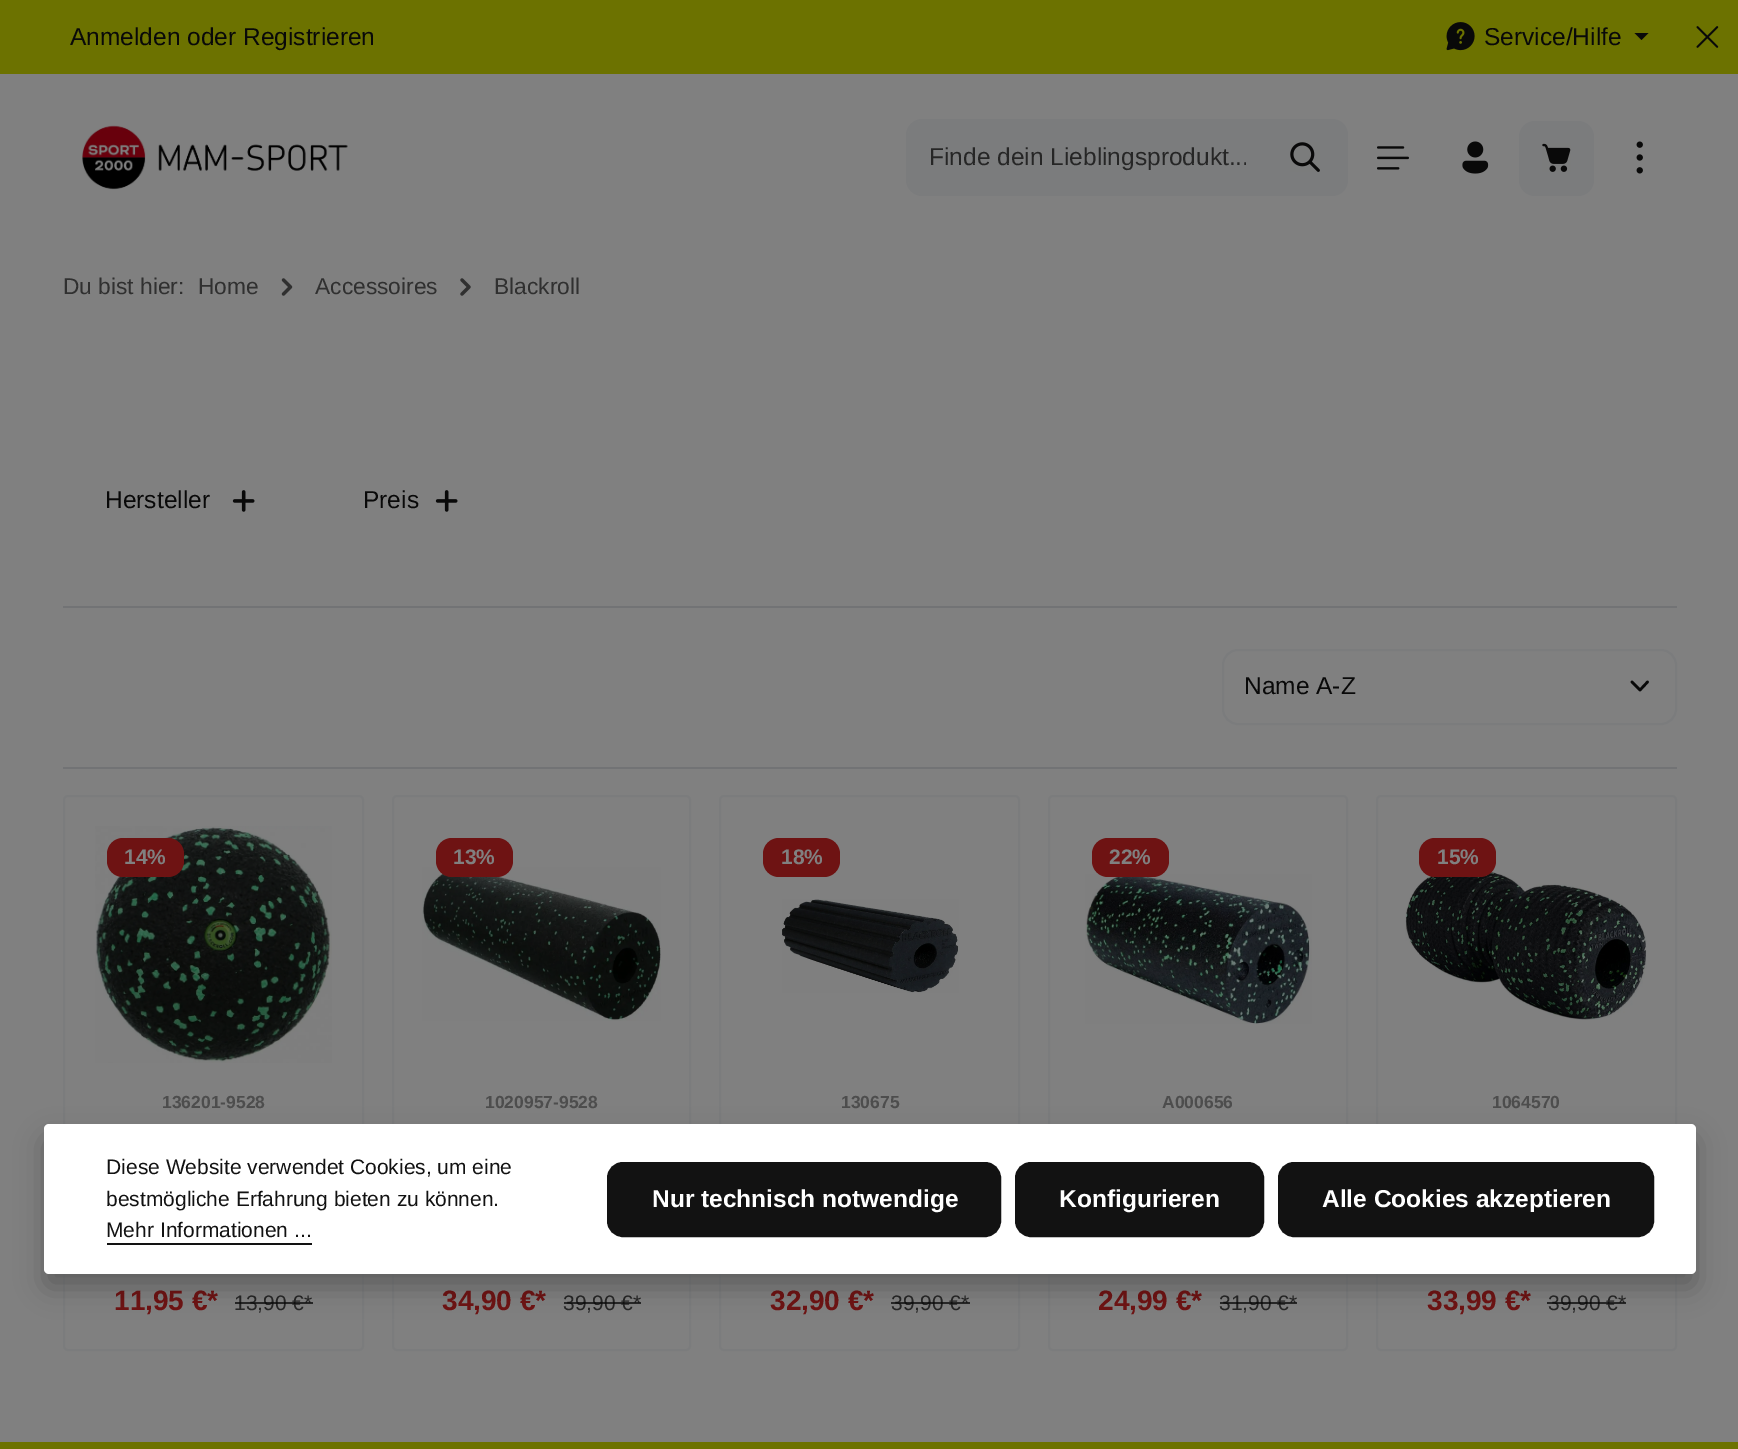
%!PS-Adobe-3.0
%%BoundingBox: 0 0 1738 1449
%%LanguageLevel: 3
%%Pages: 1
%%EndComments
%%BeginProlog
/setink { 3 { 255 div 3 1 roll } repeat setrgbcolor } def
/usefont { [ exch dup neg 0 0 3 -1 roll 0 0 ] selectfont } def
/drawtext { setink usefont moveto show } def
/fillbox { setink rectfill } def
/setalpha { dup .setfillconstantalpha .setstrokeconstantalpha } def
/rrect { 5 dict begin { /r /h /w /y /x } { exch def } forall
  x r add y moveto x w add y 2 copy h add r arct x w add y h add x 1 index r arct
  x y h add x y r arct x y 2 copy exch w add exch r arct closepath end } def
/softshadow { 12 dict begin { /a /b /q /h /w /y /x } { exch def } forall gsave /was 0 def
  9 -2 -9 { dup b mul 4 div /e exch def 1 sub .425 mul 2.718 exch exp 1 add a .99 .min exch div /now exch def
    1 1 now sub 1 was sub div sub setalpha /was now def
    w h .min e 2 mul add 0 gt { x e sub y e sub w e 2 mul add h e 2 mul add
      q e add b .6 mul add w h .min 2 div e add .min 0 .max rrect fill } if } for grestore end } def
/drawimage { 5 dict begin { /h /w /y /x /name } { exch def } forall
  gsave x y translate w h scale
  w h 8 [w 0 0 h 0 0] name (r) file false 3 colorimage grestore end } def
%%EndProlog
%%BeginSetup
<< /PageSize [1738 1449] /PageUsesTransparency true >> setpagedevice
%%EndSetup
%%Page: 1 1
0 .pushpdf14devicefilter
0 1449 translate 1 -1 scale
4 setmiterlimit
0 0 1738 1449 128 128 128 fillbox
0 0 1738 74 108 114 0 fillbox
(Anmelden oder Registrieren) 70 45 /LiberationSans-Regular 24.5 9 9 9 drawtext
(assets/img1.rgb) 1446 22 29 29 drawimage
(Service/Hilfe) 1484 45 /LiberationSans-Regular 24.5 9 9 9 drawtext
1634.5 33 moveto 1648.5 33 lineto 1641.5 40 lineto closepath fill
(assets/img2.rgb) 1696 26 23 22 drawimage
(assets/img3.rgb) 82 125 266 65 drawimage
123 124 125 setink
922 121 moveto 1267 121 lineto 1267 194 lineto 922 194 lineto 914.5 194 908 187.5 908 180 curveto 908 135 lineto 908 127.5 914.5 121 922 121 curveto closepath fill
922 119 moveto 1267 119 lineto 1267 196 lineto 922 196 lineto 914 196 906 189 906 180 curveto 906 135 lineto 906 126 914 119 922 119 curveto closepath 922 121 moveto 1267 121 lineto 1267 194 lineto 922 194 lineto 915 194 908 188 908 180 curveto 908 135 lineto 908 127 915 121 922 121 curveto closepath eofill
gsave
929 144 317 28 rectclip
(Finde dein Lieblingsprodukt...) 929 165 /LiberationSans-Regular 24.5 38 38 38 drawtext
grestore
1265 119 moveto 1332 119 lineto 1341 119 1348 126 1348 135 curveto 1348 180 lineto 1348 189 1341 196 1332 196 curveto 1265 196 lineto closepath fill
(assets/img4.rgb) 1290 142 30 30 drawimage
(assets/img5.rgb) 1377 146 32 24 drawimage
(assets/img6.rgb) 1462 141 27 33 drawimage
1519 121 75 75 16 rrect fill
(assets/img7.rgb) 1542 143 29 29 drawimage
(assets/img8.rgb) 1636 141 7 33 drawimage
(Du bist hier:) 63 294 /LiberationSans-Regular 22.75 48 48 48 drawtext
(Home) 198 294 /LiberationSans-Regular 22.75 48 48 48 drawtext
(assets/img9.rgb) 281 278 12 18 drawimage
(Accessoires) 315 294 /LiberationSans-Regular 22.75 48 48 48 drawtext
(assets/img10.rgb) 460 278 11 18 drawimage
(Blackroll) 494 294 /LiberationSans-Regular 22.75 48 48 48 drawtext
(Hersteller) 105 508 /LiberationSans-Regular 24.5 9 9 9 drawtext
(assets/img11.rgb) 232 490 23 22 drawimage
(Preis) 363 508 /LiberationSans-Regular 24.5 9 9 9 drawtext
(assets/img11.rgb) 435 490 23 22 drawimage
63 606 1614 2 114 115 117 fillbox
9 9 9 setink
2.6 setlinewidth
1 setlinecap
1 setlinejoin
1632 682 moveto 1640 690 lineto 1647.5 682 lineto stroke
123 124 125 setink
2 setlinewidth
0 setlinecap
0 setlinejoin
1223 650 453 74 15 rrect stroke
(Name A-Z) 1244 694 /LiberationSans-Regular 24.5 9 9 9 drawtext
63 767 1614 2 114 115 117 fillbox
123 124 125 setink
64 796 299 554 4 rrect stroke
(assets/img12.rgb) 95 826 237 237 drawimage
110 19 19 setink
107 838 77 39 16 rrect fill
(14%) 124 864 /LiberationSans-Bold 21 128 128 128 drawtext
(136201-9528) 162 1108 /LiberationSans-Bold 17.5 77 77 77 drawtext
(11,95 €*) 114 1310 /LiberationSans-Bold 28 110 19 19 drawtext
(13,90 €*) 234 1310 /LiberationSans-Regular 21 38 38 38 drawtext
0.75 setalpha
235 1302 78 2 9 9 9 fillbox
1 setalpha
123 124 125 setink
393 796 297 554 4 rrect stroke
(assets/img13.rgb) 422 867 239 154 drawimage
110 19 19 setink
436 838 77 39 16 rrect fill
(13%) 453 864 /LiberationSans-Bold 21 128 128 128 drawtext
(1020957-9528) 485 1108 /LiberationSans-Bold 17.5 77 77 77 drawtext
(34,90 €*) 442 1310 /LiberationSans-Bold 28 110 19 19 drawtext
(39,90 €*) 563 1310 /LiberationSans-Regular 21 38 38 38 drawtext
0.75 setalpha
564 1302 77 2 9 9 9 fillbox
1 setalpha
123 124 125 setink
720 796 299 554 4 rrect stroke
110 19 19 setink
763 838 77 39 16 rrect fill
(18%) 781 864 /LiberationSans-Bold 21 128 128 128 drawtext
(assets/img14.rgb) 782 899 177 94 drawimage
(130675) 841 1108 /LiberationSans-Bold 17.5 77 77 77 drawtext
(32,90 €*) 770 1310 /LiberationSans-Bold 28 110 19 19 drawtext
(39,90 €*) 891 1310 /LiberationSans-Regular 21 38 38 38 drawtext
0.75 setalpha
891 1302 79 2 9 9 9 fillbox
1 setalpha
123 124 125 setink
1049 796 298 554 4 rrect stroke
(assets/img15.rgb) 1085 874 227 150 drawimage
110 19 19 setink
1092 838 77 39 16 rrect fill
(22%) 1109 864 /LiberationSans-Bold 21 128 128 128 drawtext
(A000656) 1162 1108 /LiberationSans-Bold 17.5 77 77 77 drawtext
(24,99 €*) 1098 1310 /LiberationSans-Bold 28 110 19 19 drawtext
(31,90 €*) 1219 1310 /LiberationSans-Regular 21 38 38 38 drawtext
0.75 setalpha
1220 1302 77 2 9 9 9 fillbox
1 setalpha
123 124 125 setink
1377 796 299 554 4 rrect stroke
(assets/img16.rgb) 1405 868 242 152 drawimage
110 19 19 setink
1419 838 77 39 16 rrect fill
(15%) 1437 864 /LiberationSans-Bold 21 128 128 128 drawtext
(1064570) 1492 1108 /LiberationSans-Bold 17.5 77 77 77 drawtext
(33,99 €*) 1427 1310 /LiberationSans-Bold 28 110 19 19 drawtext
(39,90 €*) 1548 1310 /LiberationSans-Regular 21 38 38 38 drawtext
0.75 setalpha
1547 1302 79 2 9 9 9 fillbox
1 setalpha
0 1442 1738 7 108 114 0 fillbox
0 0 0 setink
44 1138 1652 150 5 14 0.25 softshadow
255 255 255 setink
44 1124 1652 150 5 rrect fill
(Diese Website verwendet Cookies, um eine) 106 1174 /LiberationSans-Regular 21 18 18 18 drawtext
(bestmögliche Erfahrung bieten zu können.) 106 1206 /LiberationSans-Regular 21 18 18 18 drawtext
(Mehr Informationen ...) 106 1237 /LiberationSans-Regular 21 18 18 18 drawtext
107 1243 205 2 18 18 18 fillbox
608 1163 392 73 15 rrect gsave fill grestore
stroke
(Nur technisch notwendige) 652 1207 /LiberationSans-Bold 24.5 255 255 255 drawtext
18 18 18 setink
1016 1163 247 73 15 rrect gsave fill grestore
stroke
(Konfigurieren) 1059 1207 /LiberationSans-Bold 24.5 255 255 255 drawtext
18 18 18 setink
1279 1163 374 73 15 rrect gsave fill grestore
stroke
(Alle Cookies akzeptieren) 1322 1207 /LiberationSans-Bold 24.5 255 255 255 drawtext
.poppdf14devicefilter showpage
%%EOF
